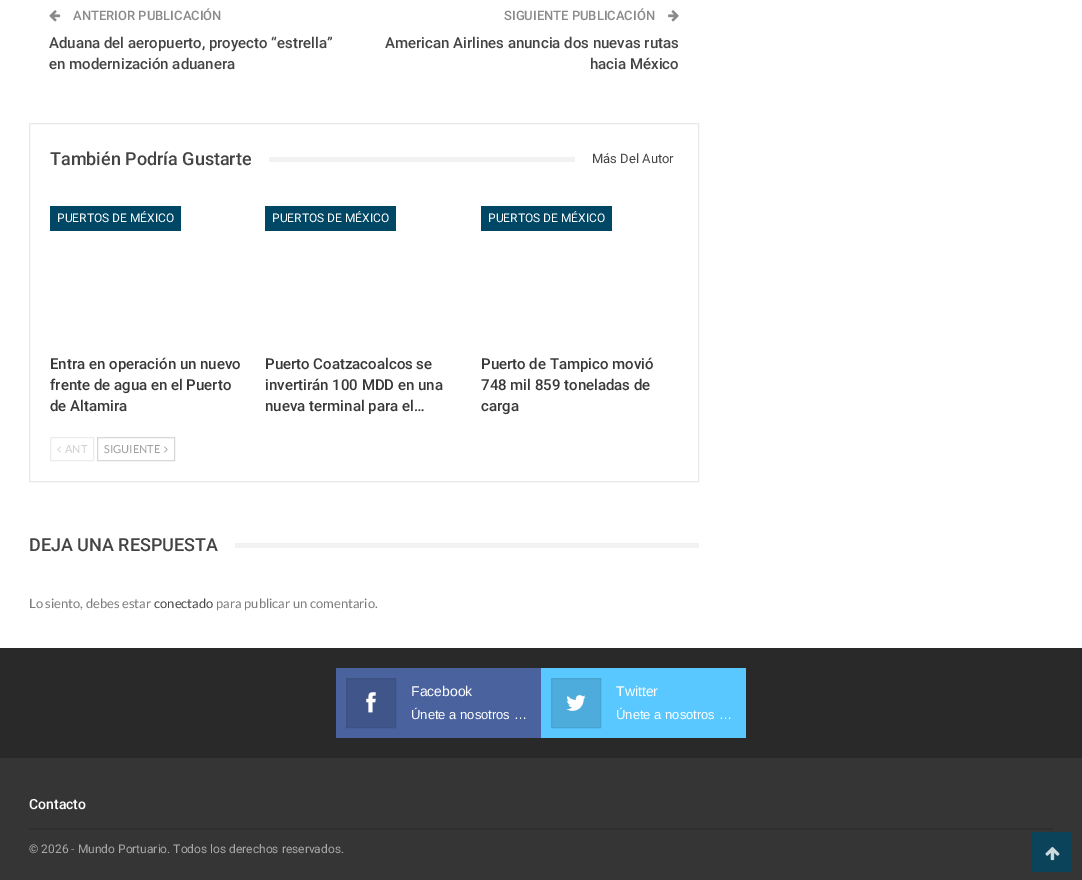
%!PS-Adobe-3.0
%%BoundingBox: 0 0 1082 880
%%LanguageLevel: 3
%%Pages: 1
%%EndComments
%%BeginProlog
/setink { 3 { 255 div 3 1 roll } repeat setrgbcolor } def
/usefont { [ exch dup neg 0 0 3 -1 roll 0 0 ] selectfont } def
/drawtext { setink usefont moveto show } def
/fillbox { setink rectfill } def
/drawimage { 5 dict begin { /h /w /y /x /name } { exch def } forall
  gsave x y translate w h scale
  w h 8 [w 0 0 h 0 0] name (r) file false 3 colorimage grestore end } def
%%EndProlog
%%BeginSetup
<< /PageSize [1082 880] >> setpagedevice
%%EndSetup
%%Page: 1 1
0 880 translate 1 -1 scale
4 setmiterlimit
0 0 1082 880 255 255 255 fillbox
(assets/img1.rgb) 49 10 12 12 drawimage
(ANTERIOR PUBLICACIÓN) 73 20 /Roboto-Medium 13 138 138 138 drawtext
(Aduana del aeropuerto, proyecto “estrella”) 49 48 /Roboto-Medium 15 68 68 68 drawtext
(en modernización aduanera) 49 69 /Roboto-Medium 15 68 68 68 drawtext
(SIGUIENTE PUBLICACIÓN) 504 20 /Roboto-Medium 13 138 138 138 drawtext
(assets/img2.rgb) 668 10 11 12 drawimage
(American Airlines anuncia dos nuevas rutas) 385 48 /Roboto-Medium 15 68 68 68 drawtext
(hacia México) 590 69 /Roboto-Medium 15 68 68 68 drawtext
232 232 232 setink
29.5 123.5 669 358 rectstroke
(También Podría Gustarte) 50 165 /Roboto-Medium 18 68 68 68 drawtext
269 157 306 5 242 242 242 fillbox
(Más Del Autor) 592 163 /Roboto-Regular 13 68 68 68 drawtext
50 206 131 25 0 71 101 fillbox
(PUERTOS DE MÉXICO) 57 222 /Roboto-Regular 12 255 255 255 drawtext
(Entra en operación un nuevo) 50 369 /Roboto-Medium 15 56 56 56 drawtext
(frente de agua en el Puerto) 50 390 /Roboto-Medium 15 56 56 56 drawtext
(de Altamira) 50 411 /Roboto-Medium 15 56 56 56 drawtext
265 206 131 25 0 71 101 fillbox
(PUERTOS DE MÉXICO) 272 222 /Roboto-Regular 12 255 255 255 drawtext
(Puerto Coatzacoalcos se) 265 369 /Roboto-Medium 15 56 56 56 drawtext
(invertirán 100 MDD en una) 265 390 /Roboto-Medium 15 56 56 56 drawtext
(nueva terminal para el…) 265 411 /Roboto-Medium 15 56 56 56 drawtext
481 206 131 25 0 71 101 fillbox
(PUERTOS DE MÉXICO) 488 222 /Roboto-Regular 12 255 255 255 drawtext
(Puerto de Tampico movió) 481 369 /Roboto-Medium 15 56 56 56 drawtext
(748 mil 859 toneladas de) 481 390 /Roboto-Medium 15 56 56 56 drawtext
(carga) 481 411 /Roboto-Medium 15 56 56 56 drawtext
236 236 236 setink
50.5 437.5 43 23 rectstroke
(assets/img3.rgb) 57 446 4 7 drawimage
(ANT) 65 453 /Lato-Regular 11 207 207 207 drawtext
216 216 216 setink
97.5 437.5 77 23 rectstroke
(SIGUIENTE) 104 453 /Lato-Regular 11 158 158 158 drawtext
(assets/img4.rgb) 164 446 4 7 drawimage
(DEJA UNA RESPUESTA) 29 551 /Roboto-Medium 18 68 68 68 drawtext
235 543 464 5 242 242 242 fillbox
(Lo siento, debes estar) 29 608 /Lato-Regular 13 123 123 123 drawtext
(conectado) 154 608 /Lato-Regular 13 68 68 68 drawtext
(para publicar un comentario.) 216 608 /Lato-Regular 13 123 123 123 drawtext
0 648 1082 110 41 41 41 fillbox
336 668 205 70 74 99 159 fillbox
64 85 137 setink
346.5 678.5 moveto 395.5 678.5 lineto 395.5 727.5 lineto 346.5 727.5 lineto closepath gsave fill grestore
61 81 130 setink
stroke
(assets/img5.rgb) 366 692 10 21 drawimage
(Facebook) 411 696 /LiberationSans-Regular 14 255 255 255 drawtext
(Únete a nosotros …) 411 719 /LiberationSans-Regular 13 255 255 255 drawtext
541 668 205 70 89 200 255 fillbox
77 172 219 setink
551.5 678.5 moveto 600.5 678.5 lineto 600.5 727.5 lineto 551.5 727.5 lineto closepath gsave fill grestore
73 163 208 setink
stroke
(assets/img6.rgb) 566 695 20 16 drawimage
(Twitter) 616 696 /LiberationSans-Regular 14 255 255 255 drawtext
(Únete a nosotros …) 616 719 /LiberationSans-Regular 13 255 255 255 drawtext
0 758 1082 122 53 53 53 fillbox
29 828 1024 2 47 47 47 fillbox
(Contacto) 29 809 /Roboto-Medium 14 255 255 255 drawtext
(© 2026 - Mundo Portuario. Todos los derechos reservados.) 29 853 /Roboto-Regular 12 168 168 168 drawtext
1032 832 40 40 11 67 91 fillbox
(assets/img7.rgb) 1045 847 15 14 drawimage
showpage
%%EOF
